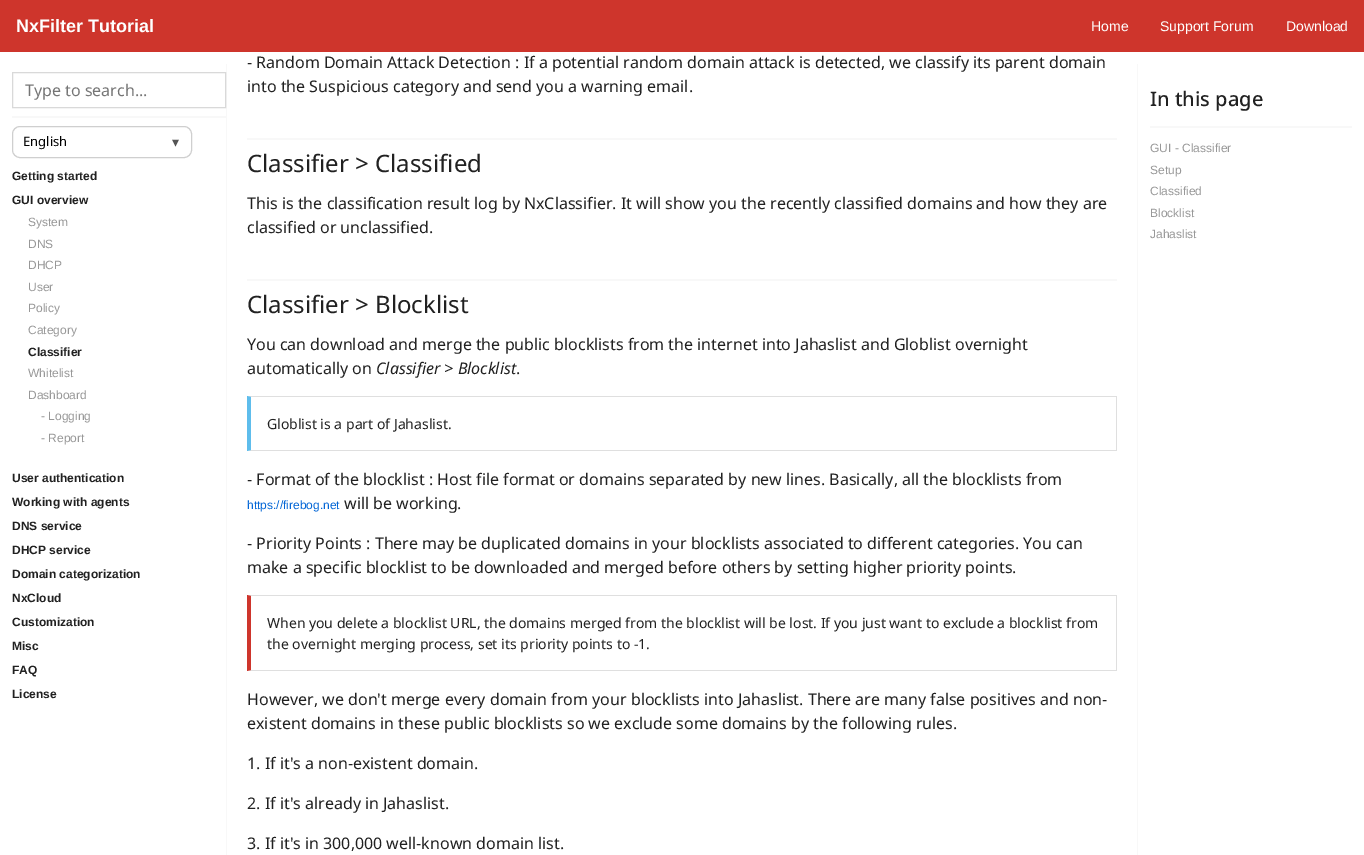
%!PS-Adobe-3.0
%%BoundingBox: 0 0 1364 855
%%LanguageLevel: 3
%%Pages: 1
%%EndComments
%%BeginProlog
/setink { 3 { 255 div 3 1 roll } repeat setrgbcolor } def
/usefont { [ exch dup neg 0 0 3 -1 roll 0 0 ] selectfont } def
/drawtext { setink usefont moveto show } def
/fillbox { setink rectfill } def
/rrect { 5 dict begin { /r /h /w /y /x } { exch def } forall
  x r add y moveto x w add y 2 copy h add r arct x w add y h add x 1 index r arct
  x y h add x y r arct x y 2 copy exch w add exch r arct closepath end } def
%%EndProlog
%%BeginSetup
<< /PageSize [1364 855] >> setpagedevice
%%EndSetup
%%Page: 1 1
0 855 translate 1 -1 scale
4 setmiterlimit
0 0 1364 855 255 255 255 fillbox
0 0 1364 52 206 53 44 fillbox
(NxFilter Tutorial) 16 32 /LiberationSans-Bold 18 255 255 255 drawtext
(Home) 1091 31 /LiberationSans-Regular 14 255 255 255 drawtext
(Support Forum) 1160 31 /LiberationSans-Regular 14 255 255 255 drawtext
(Download) 1286 31 /LiberationSans-Regular 14 255 255 255 drawtext
226 64 1 791 248 248 248 fillbox
217 217 217 setink
12.5 72.5 213 35 rectstroke
(Type to search...) 25 96 /NotoSans-Regular 16 117 117 117 drawtext
12 116 214 2 248 248 248 fillbox
207 207 207 setink
12.5 126.5 179 31 7.5 rrect stroke
(English) 23 146 /NotoSans-Regular 13 0 0 0 drawtext
(▾) 172 147 /DejaVuSans-Regular 14 85 85 85 drawtext
(Getting started) 12 180 /LiberationSans-Bold 12 33 33 33 drawtext
(GUI overview) 12 204 /LiberationSans-Bold 12 33 33 33 drawtext
(System) 28 226 /LiberationSans-Regular 12 152 152 152 drawtext
(DNS) 28 248 /LiberationSans-Regular 12 152 152 152 drawtext
(DHCP) 28 269 /LiberationSans-Regular 12 152 152 152 drawtext
(User) 28 291 /LiberationSans-Regular 12 152 152 152 drawtext
(Policy) 28 312 /LiberationSans-Regular 12 152 152 152 drawtext
(Category) 28 334 /LiberationSans-Regular 12 152 152 152 drawtext
(Classifier) 28 356 /LiberationSans-Bold 12 33 33 33 drawtext
(Whitelist) 28 377 /LiberationSans-Regular 12 152 152 152 drawtext
(Dashboard) 28 399 /LiberationSans-Regular 12 152 152 152 drawtext
(- Logging) 41 420 /LiberationSans-Regular 12 152 152 152 drawtext
(- Report) 41 442 /LiberationSans-Regular 12 152 152 152 drawtext
(User authentication) 12 482 /LiberationSans-Bold 12 33 33 33 drawtext
(Working with agents) 12 506 /LiberationSans-Bold 12 33 33 33 drawtext
(DNS service) 12 530 /LiberationSans-Bold 12 33 33 33 drawtext
(DHCP service) 12 554 /LiberationSans-Bold 12 33 33 33 drawtext
(Domain categorization) 12 578 /LiberationSans-Bold 12 33 33 33 drawtext
(NxCloud) 12 602 /LiberationSans-Bold 12 33 33 33 drawtext
(Customization) 12 626 /LiberationSans-Bold 12 33 33 33 drawtext
(Misc) 12 650 /LiberationSans-Bold 12 33 33 33 drawtext
(FAQ) 12 674 /LiberationSans-Bold 12 33 33 33 drawtext
(License) 12 698 /LiberationSans-Bold 12 33 33 33 drawtext
(- Random Domain Attack Detection : If a potential random domain attack is detected, we classify its parent domain) 247 68 /NotoSans-Regular 16 33 33 33 drawtext
(into the Suspicious category and send you a warning email.) 247 92 /NotoSans-Regular 16 33 33 33 drawtext
247 138 870 2 248 248 248 fillbox
(Classifier > Classified) 247 172 /NotoSans-Regular 24 33 33 33 drawtext
(This is the classification result log by NxClassifier. It will show you the recently classified domains and how they are) 247 209 /NotoSans-Regular 16 33 33 33 drawtext
(classified or unclassified.) 247 233 /NotoSans-Regular 16 33 33 33 drawtext
247 279 870 2 248 248 248 fillbox
(Classifier > Blocklist) 247 313 /NotoSans-Regular 24 33 33 33 drawtext
(You can download and merge the public blocklists from the internet into Jahaslist and Globlist overnight) 247 350 /NotoSans-Regular 16 33 33 33 drawtext
(automatically on) 247 374 /NotoSans-Regular 16 33 33 33 drawtext
(Classifier > Blocklist) 376 374 /NotoSans-Italic 16 33 33 33 drawtext
(.) 516 374 /NotoSans-Regular 16 33 33 33 drawtext
223 223 223 setink
247 396 moveto 1117 396 lineto 1116 397 lineto 251 397 lineto closepath fill
1116 396 1 55 223 223 223 fillbox
1117 451 moveto 247 451 lineto 251 450 lineto 1116 450 lineto closepath fill
94 189 236 setink
247 451 moveto 247 396 lineto 251 397 lineto 251 450 lineto closepath fill
(Globlist is a part of Jahaslist.) 267 429 /NotoSans-Regular 14 33 33 33 drawtext
(- Format of the blocklist : Host file format or domains separated by new lines. Basically, all the blocklists from) 247 485 /NotoSans-Regular 16 33 33 33 drawtext
(https://firebog.net) 247 509 /LiberationSans-Regular 12 3 102 214 drawtext
(will be working.) 344 509 /NotoSans-Regular 16 33 33 33 drawtext
(- Priority Points : There may be duplicated domains in your blocklists associated to different categories. You can) 247 549 /NotoSans-Regular 16 33 33 33 drawtext
(make a specific blocklist to be downloaded and merged before others by setting higher priority points.) 247 573 /NotoSans-Regular 16 33 33 33 drawtext
223 223 223 setink
247 595 moveto 1117 595 lineto 1116 596 lineto 251 596 lineto closepath fill
1116 595 1 76 223 223 223 fillbox
1117 671 moveto 247 671 lineto 251 670 lineto 1116 670 lineto closepath fill
206 53 44 setink
247 671 moveto 247 595 lineto 251 596 lineto 251 670 lineto closepath fill
(When you delete a blocklist URL, the domains merged from the blocklist will be lost. If you just want to exclude a blocklist from) 267 628 /NotoSans-Regular 14 33 33 33 drawtext
(the overnight merging process, set its priority points to -1.) 267 649 /NotoSans-Regular 14 33 33 33 drawtext
(However, we don't merge every domain from your blocklists into Jahaslist. There are many false positives and non-) 247 705 /NotoSans-Regular 16 33 33 33 drawtext
(existent domains in these public blocklists so we exclude some domains by the following rules.) 247 729 /NotoSans-Regular 16 33 33 33 drawtext
(1. If it's a non-existent domain.) 247 769 /NotoSans-Regular 16 33 33 33 drawtext
(2. If it's already in Jahaslist.) 247 809 /NotoSans-Regular 16 33 33 33 drawtext
(3. If it's in 300,000 well-known domain list.) 247 849 /NotoSans-Regular 16 33 33 33 drawtext
1137 64 1 791 248 248 248 fillbox
(In this page) 1150 106 /NotoSans-Medium 20 33 33 33 drawtext
1150 126 202 2 248 248 248 fillbox
(GUI - Classifier) 1150 152 /LiberationSans-Regular 12 152 152 152 drawtext
(Setup) 1150 174 /LiberationSans-Regular 12 152 152 152 drawtext
(Classified) 1150 195 /LiberationSans-Regular 12 152 152 152 drawtext
(Blocklist) 1150 217 /LiberationSans-Regular 12 152 152 152 drawtext
(Jahaslist) 1150 238 /LiberationSans-Regular 12 152 152 152 drawtext
showpage
%%EOF
